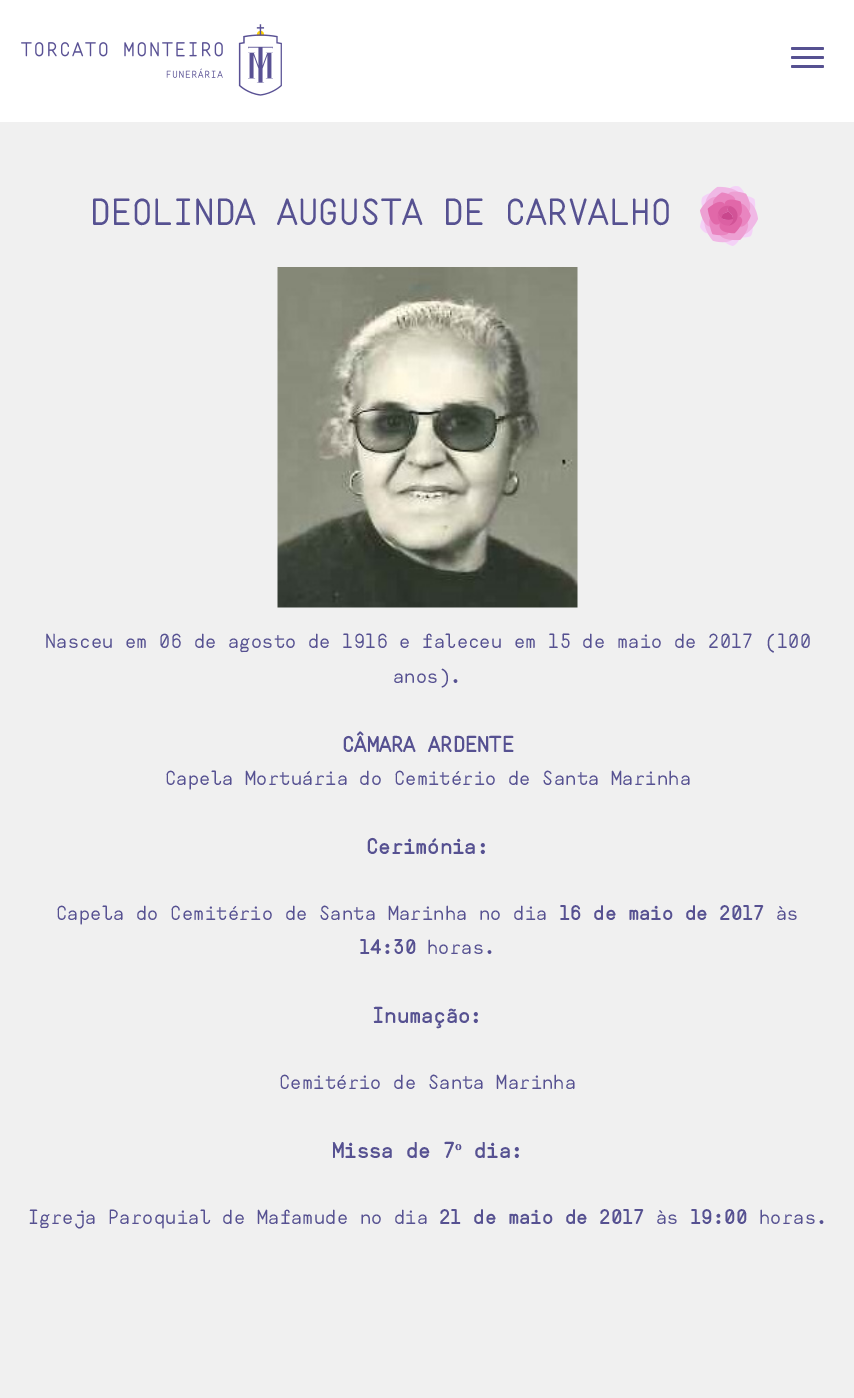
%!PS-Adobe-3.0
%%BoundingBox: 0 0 854 1398
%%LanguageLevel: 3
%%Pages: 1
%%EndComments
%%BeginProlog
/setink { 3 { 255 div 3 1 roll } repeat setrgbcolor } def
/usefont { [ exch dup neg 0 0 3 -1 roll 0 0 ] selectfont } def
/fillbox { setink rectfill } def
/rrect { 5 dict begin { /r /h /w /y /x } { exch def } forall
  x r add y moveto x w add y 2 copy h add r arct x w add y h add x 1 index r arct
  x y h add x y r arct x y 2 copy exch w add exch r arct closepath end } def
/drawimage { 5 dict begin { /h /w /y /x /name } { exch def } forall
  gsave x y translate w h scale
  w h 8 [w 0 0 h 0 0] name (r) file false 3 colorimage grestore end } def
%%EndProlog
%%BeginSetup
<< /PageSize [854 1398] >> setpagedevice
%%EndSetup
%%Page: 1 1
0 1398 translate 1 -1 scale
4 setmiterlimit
0 0 854 1398 240 240 240 fillbox
0 0 854 122 255 255 255 fillbox
(assets/img1.rgb) 21 24 261 72 drawimage
86 81 145 setink
791 47 33 3 1.5 rrect fill
791 56 33 3 1.5 rrect fill
791 65 33 3 1.5 rrect fill
/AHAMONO-Regular 36 usefont
90 225 moveto 0.4 0 (DEOLINDA AUGUSTA DE CARVALHO) ashow
(assets/img2.rgb) 700 186 58 60 drawimage
(assets/img3.rgb) 277 267 301 341 drawimage
/AHAMONO-Regular 19.5 usefont
45 648 moveto 0.4 0 (Nasceu em 06 de agosto de 1916 e faleceu em 15 de maio de 2017 \(100) ashow
393 683 moveto 0.4 0 (anos\).) ashow
/AHAMONO-Bold 21 usefont
342 752 moveto 0.4 0 (CÂMARA ARDENTE) ashow
/AHAMONO-Regular 19.5 usefont
165 785 moveto 0.4 0 (Capela Mortuária do Cemitério de Santa Marinha) ashow
/AHAMONO-Bold 21 usefont
366 854 moveto 0.4 0 (Cerimónia:) ashow
/AHAMONO-Regular 19.5 usefont
56 920 moveto 0.4 0 (Capela do Cemitério de Santa Marinha no dia) ashow
/AHAMONO-Bold 19.5 usefont
559 920 moveto 0.4 0 (16 de maio de 2017) ashow
/AHAMONO-Regular 19.5 usefont
776 920 moveto 0.4 0 (às) ashow
/AHAMONO-Bold 19.5 usefont
359 954 moveto 0.4 0 (14:30) ashow
/AHAMONO-Regular 19.5 usefont
427 954 moveto 0.4 0 (horas.) ashow
/AHAMONO-Bold 21 usefont
372 1023 moveto 0.4 0 (Inumação:) ashow
/AHAMONO-Regular 19.5 usefont
279 1089 moveto 0.4 0 (Cemitério de Santa Marinha) ashow
/AHAMONO-Bold 21 usefont
332 1158 moveto 0.4 0 (Missa de 7) ashow
/LiberationSerif-Bold 21 usefont
455 1158 moveto 0.4 0 (º) ashow
/AHAMONO-Bold 21 usefont
474 1158 moveto 0.4 0 (dia:) ashow
/AHAMONO-Regular 19.5 usefont
28 1224 moveto 0.4 0 (Igreja Paroquial de Mafamude no dia) ashow
/AHAMONO-Bold 19.5 usefont
439 1224 moveto 0.4 0 (21 de maio de 2017) ashow
/AHAMONO-Regular 19.5 usefont
656 1224 moveto 0.4 0 (às) ashow
/AHAMONO-Bold 19.5 usefont
690 1224 moveto 0.4 0 (19:00) ashow
/AHAMONO-Regular 19.5 usefont
759 1224 moveto 0.4 0 (horas.) ashow
showpage
%%EOF
